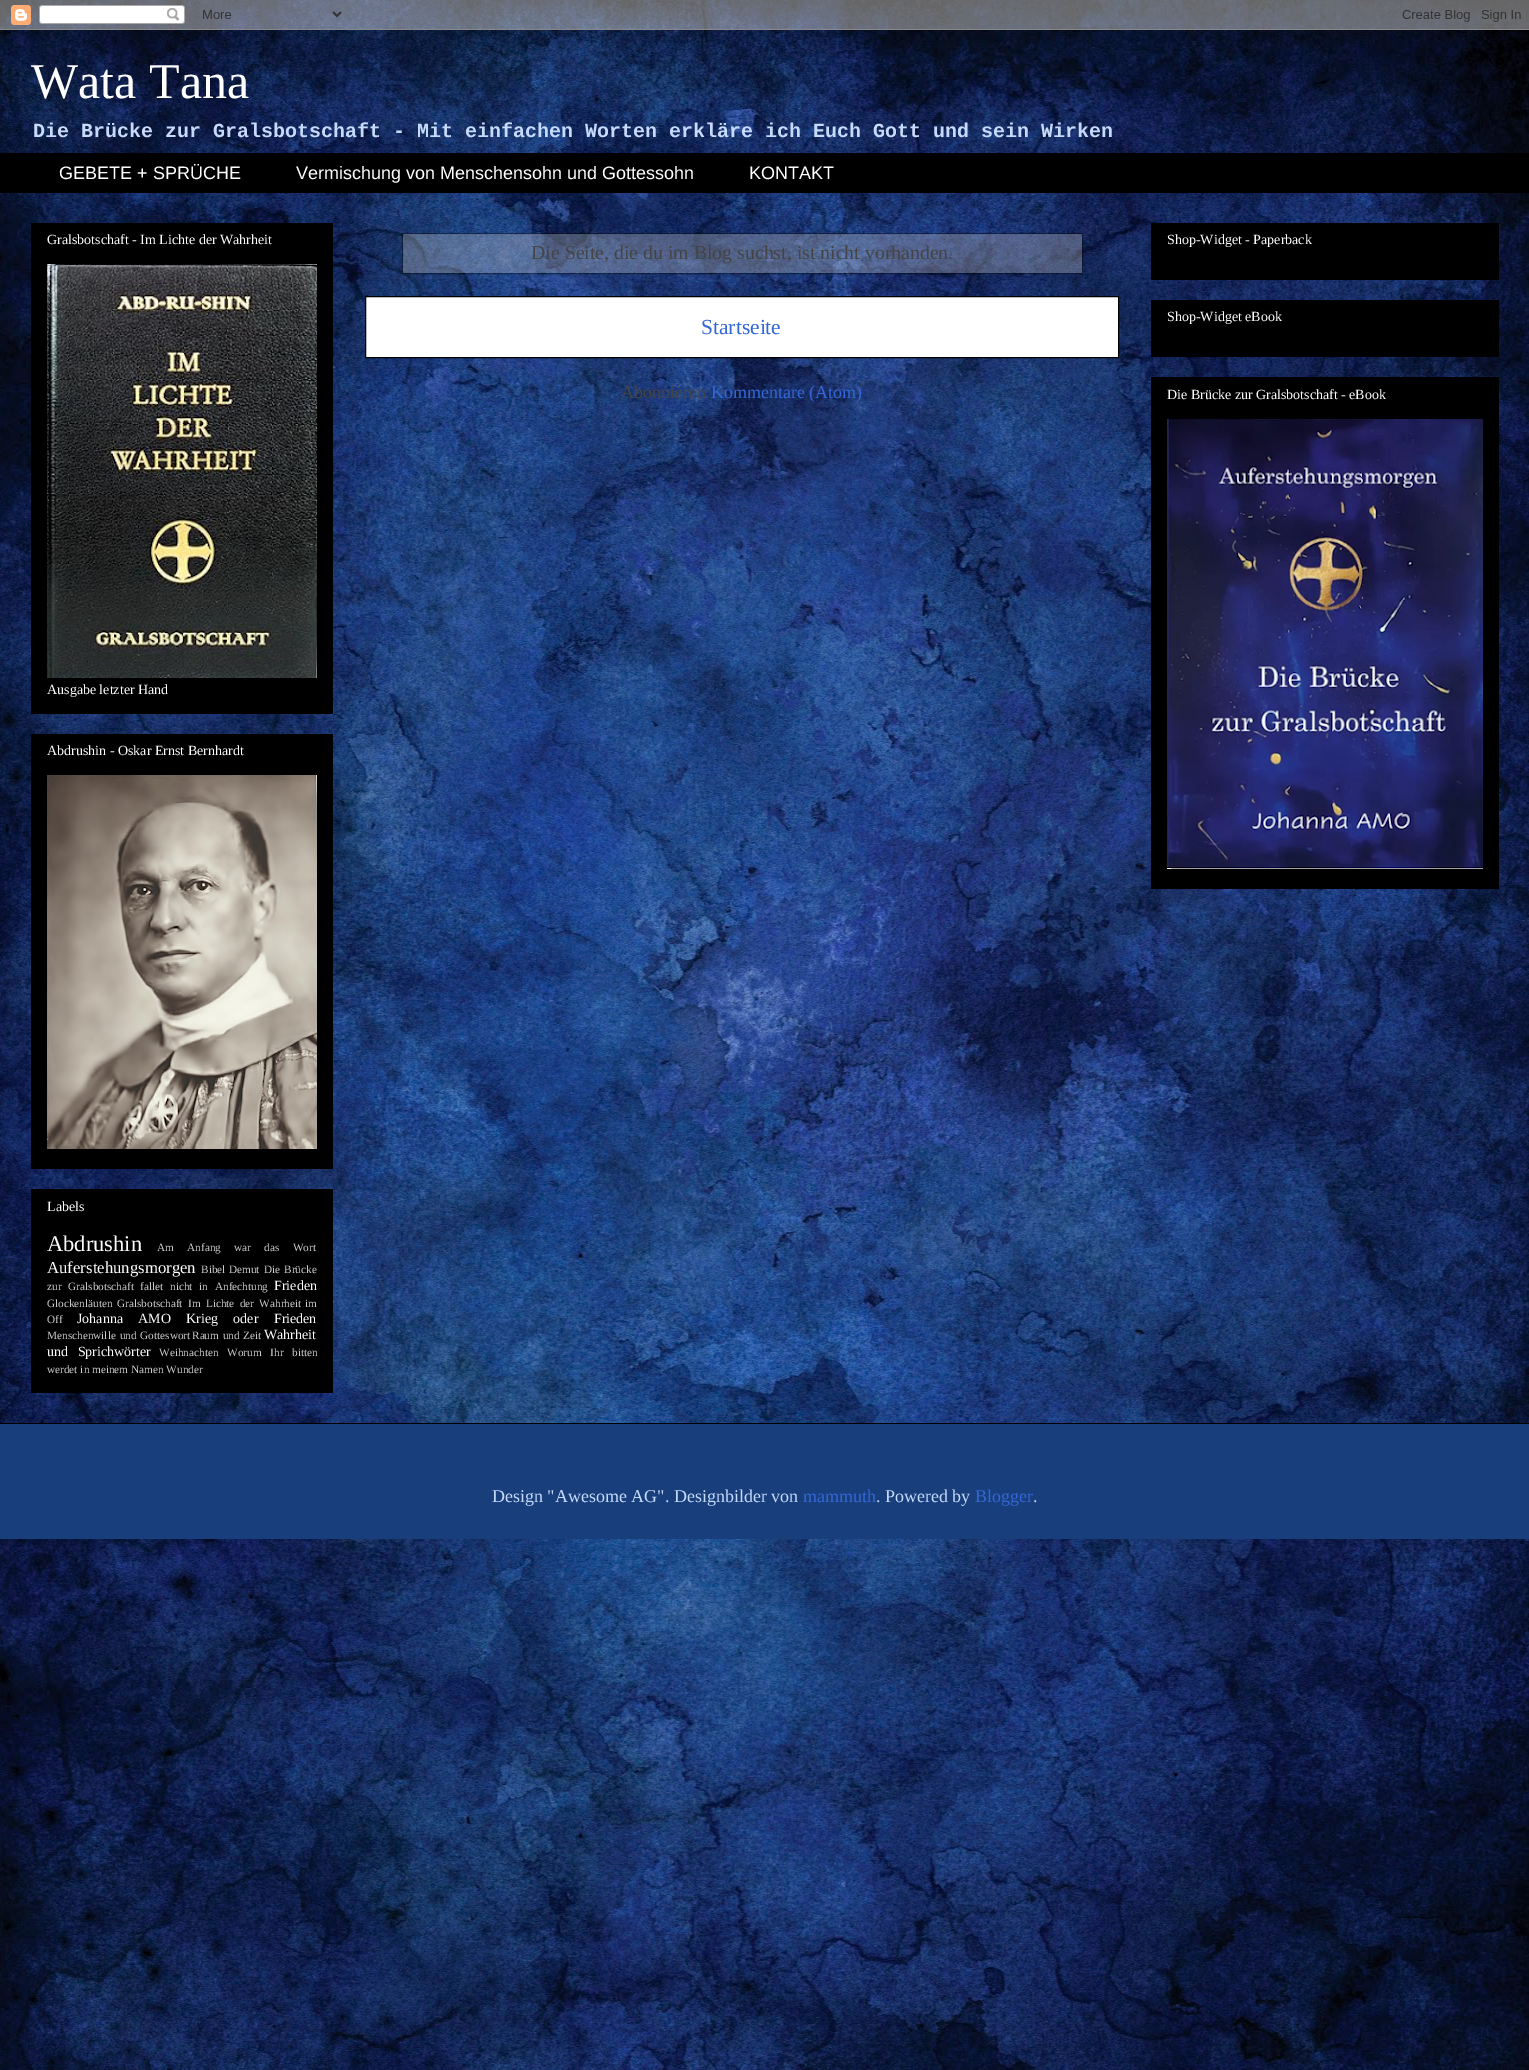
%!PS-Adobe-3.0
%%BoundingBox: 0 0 1529 2070
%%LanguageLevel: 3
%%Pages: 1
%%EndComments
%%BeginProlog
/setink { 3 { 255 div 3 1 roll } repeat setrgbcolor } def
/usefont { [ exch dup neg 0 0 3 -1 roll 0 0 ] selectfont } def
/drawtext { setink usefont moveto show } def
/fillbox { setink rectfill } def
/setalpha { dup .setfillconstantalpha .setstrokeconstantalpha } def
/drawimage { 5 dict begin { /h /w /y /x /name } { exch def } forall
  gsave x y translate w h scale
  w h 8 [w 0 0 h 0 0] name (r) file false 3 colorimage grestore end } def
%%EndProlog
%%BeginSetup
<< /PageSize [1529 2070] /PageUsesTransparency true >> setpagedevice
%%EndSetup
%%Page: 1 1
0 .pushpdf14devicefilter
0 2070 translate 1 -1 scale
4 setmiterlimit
0 0 1529 2070 255 255 255 fillbox
(assets/img1.rgb) 0 0 1529 2070 drawimage
(assets/img2.rgb) 0 0 1529 30 drawimage
(Wata Tana) 31 98 /LiberationSerif-Regular 50 255 255 255 drawtext
(Die Brücke zur Gralsbotschaft - Mit einfachen Worten erkläre ich Euch Gott und sein Wirken) 33 137 /LiberationMono-Bold 20 198 218 252 drawtext
0 153 1529 40 0 0 0 fillbox
(GEBETE + SPRÜCHE) 59 179 /Arimo-Regular 18 255 255 255 drawtext
(Vermischung von Menschensohn und Gottessohn) 296 179 /Arimo-Regular 18 255 255 255 drawtext
(KONTAKT) 749 179 /Arimo-Regular 18 255 255 255 drawtext
31 223 302 491 0 0 0 fillbox
(Gralsbotschaft - Im Lichte der Wahrheit) 47 244 /LiberationSerif-Regular 14 255 255 255 drawtext
(assets/img3.rgb) 47 264 270 414 drawimage
(Ausgabe letzter Hand) 47 694 /LiberationSerif-Regular 14 255 255 255 drawtext
31 734 302 435 0 0 0 fillbox
(Abdrushin - Oskar Ernst Bernhardt) 47 755 /LiberationSerif-Regular 14 255 255 255 drawtext
(assets/img4.rgb) 47 775 270 374 drawimage
31 1189 302 204 0 0 0 fillbox
(Labels) 47 1211 /LiberationSerif-Regular 14 255 255 255 drawtext
(Abdrushin) 47 1251 /LiberationSerif-Regular 22.5 255 255 255 drawtext
/LiberationSerif-Regular 11.25 usefont
204 204 204 setink
157 1251 moveto 10.5 0 32 (Am Anfang war das Wort) widthshow
(Auferstehungsmorgen) 47 1273 /LiberationSerif-Regular 16.75 255 255 255 drawtext
(Bibel) 201 1273 /LiberationSerif-Regular 11.25 204 204 204 drawtext
(Demut) 229 1273 /LiberationSerif-Regular 11.25 204 204 204 drawtext
264 1273 moveto 1 0 32 (Die Brücke) widthshow
47 1290 moveto 4 0 32 (zur Gralsbotschaft) widthshow
140 1290 moveto 4 0 32 (fallet nicht in Anfechtung) widthshow
(Frieden) 274 1290 /LiberationSerif-Regular 14 255 255 255 drawtext
(Glockenläuten) 47 1307 /LiberationSerif-Regular 11.25 204 204 204 drawtext
117 1307 moveto 2.5 0 32 (Gralsbotschaft Im Lichte der Wahrheit) widthshow
(im) 305 1307 /LiberationSerif-Regular 11.25 204 204 204 drawtext
(Off) 47 1323 /LiberationSerif-Regular 11.25 204 204 204 drawtext
/LiberationSerif-Regular 14 usefont
255 255 255 setink
77 1323 moveto 12 0 32 (Johanna AMO) widthshow
186 1323 moveto 12 0 32 (Krieg oder Frieden) widthshow
/LiberationSerif-Regular 11.25 usefont
204 204 204 setink
47 1339 moveto 1 0 32 (Menschenwille und Gotteswort) widthshow
192 1339 moveto 1 0 32 (Raum und Zeit) widthshow
(Wahrheit) 264 1339 /LiberationSerif-Regular 14 255 255 255 drawtext
47 1356 moveto 6 0 32 (und Sprichwörter) widthshow
(Weihnachten) 159 1356 /LiberationSerif-Regular 11.25 204 204 204 drawtext
227 1356 moveto 6 0 32 (Worum Ihr bitten) widthshow
(werdet in meinem Namen Wunder) 47 1373 /LiberationSerif-Regular 11.25 204 204 204 drawtext
0.4 setalpha
0 0 0 setink
402.5 233.5 680 40 rectstroke
0.32 setalpha
403 234 679 39 204 204 204 fillbox
1 setalpha
(Die Seite, die du im Blog suchst, ist nicht vorhanden.) 531 259 /LiberationSerif-Regular 19.8 68 68 68 drawtext
255 255 255 setink
365.5 296.5 moveto 1118.5 296.5 lineto 1118.5 357.5 lineto 365.5 357.5 lineto closepath gsave fill grestore
0 0 0 setink
stroke
(Startseite) 701 334 /LiberationSerif-Regular 21.5 51 103 214 drawtext
(Abonnieren) 621 398 /LiberationSerif-Regular 18 68 68 68 drawtext
(Kommentare \(Atom\)) 711 398 /LiberationSerif-Regular 18 51 103 214 drawtext
1151 223 348 57 0 0 0 fillbox
(Shop-Widget - Paperback) 1167 244 /LiberationSerif-Regular 14 255 255 255 drawtext
1151 300 348 57 0 0 0 fillbox
(Shop-Widget eBook) 1167 321 /LiberationSerif-Regular 14 255 255 255 drawtext
1151 377 348 512 0 0 0 fillbox
(Die Brücke zur Gralsbotschaft - eBook) 1167 399 /LiberationSerif-Regular 14 255 255 255 drawtext
(assets/img5.rgb) 1167 419 316 450 drawimage
0 1424 1529 115 24 62 124 fillbox
0 1423 1529 1 0 0 0 fillbox
(Design "Awesome AG". Designbilder von) 492 1502 /LiberationSerif-Regular 18 198 218 252 drawtext
(mammuth) 803 1502 /LiberationSerif-Regular 18 51 103 214 drawtext
(. Powered by) 876 1502 /LiberationSerif-Regular 18 198 218 252 drawtext
(Blogger) 975 1502 /LiberationSerif-Regular 18 51 103 214 drawtext
(.) 1033 1502 /LiberationSerif-Regular 18 198 218 252 drawtext
.poppdf14devicefilter showpage
%%EOF
